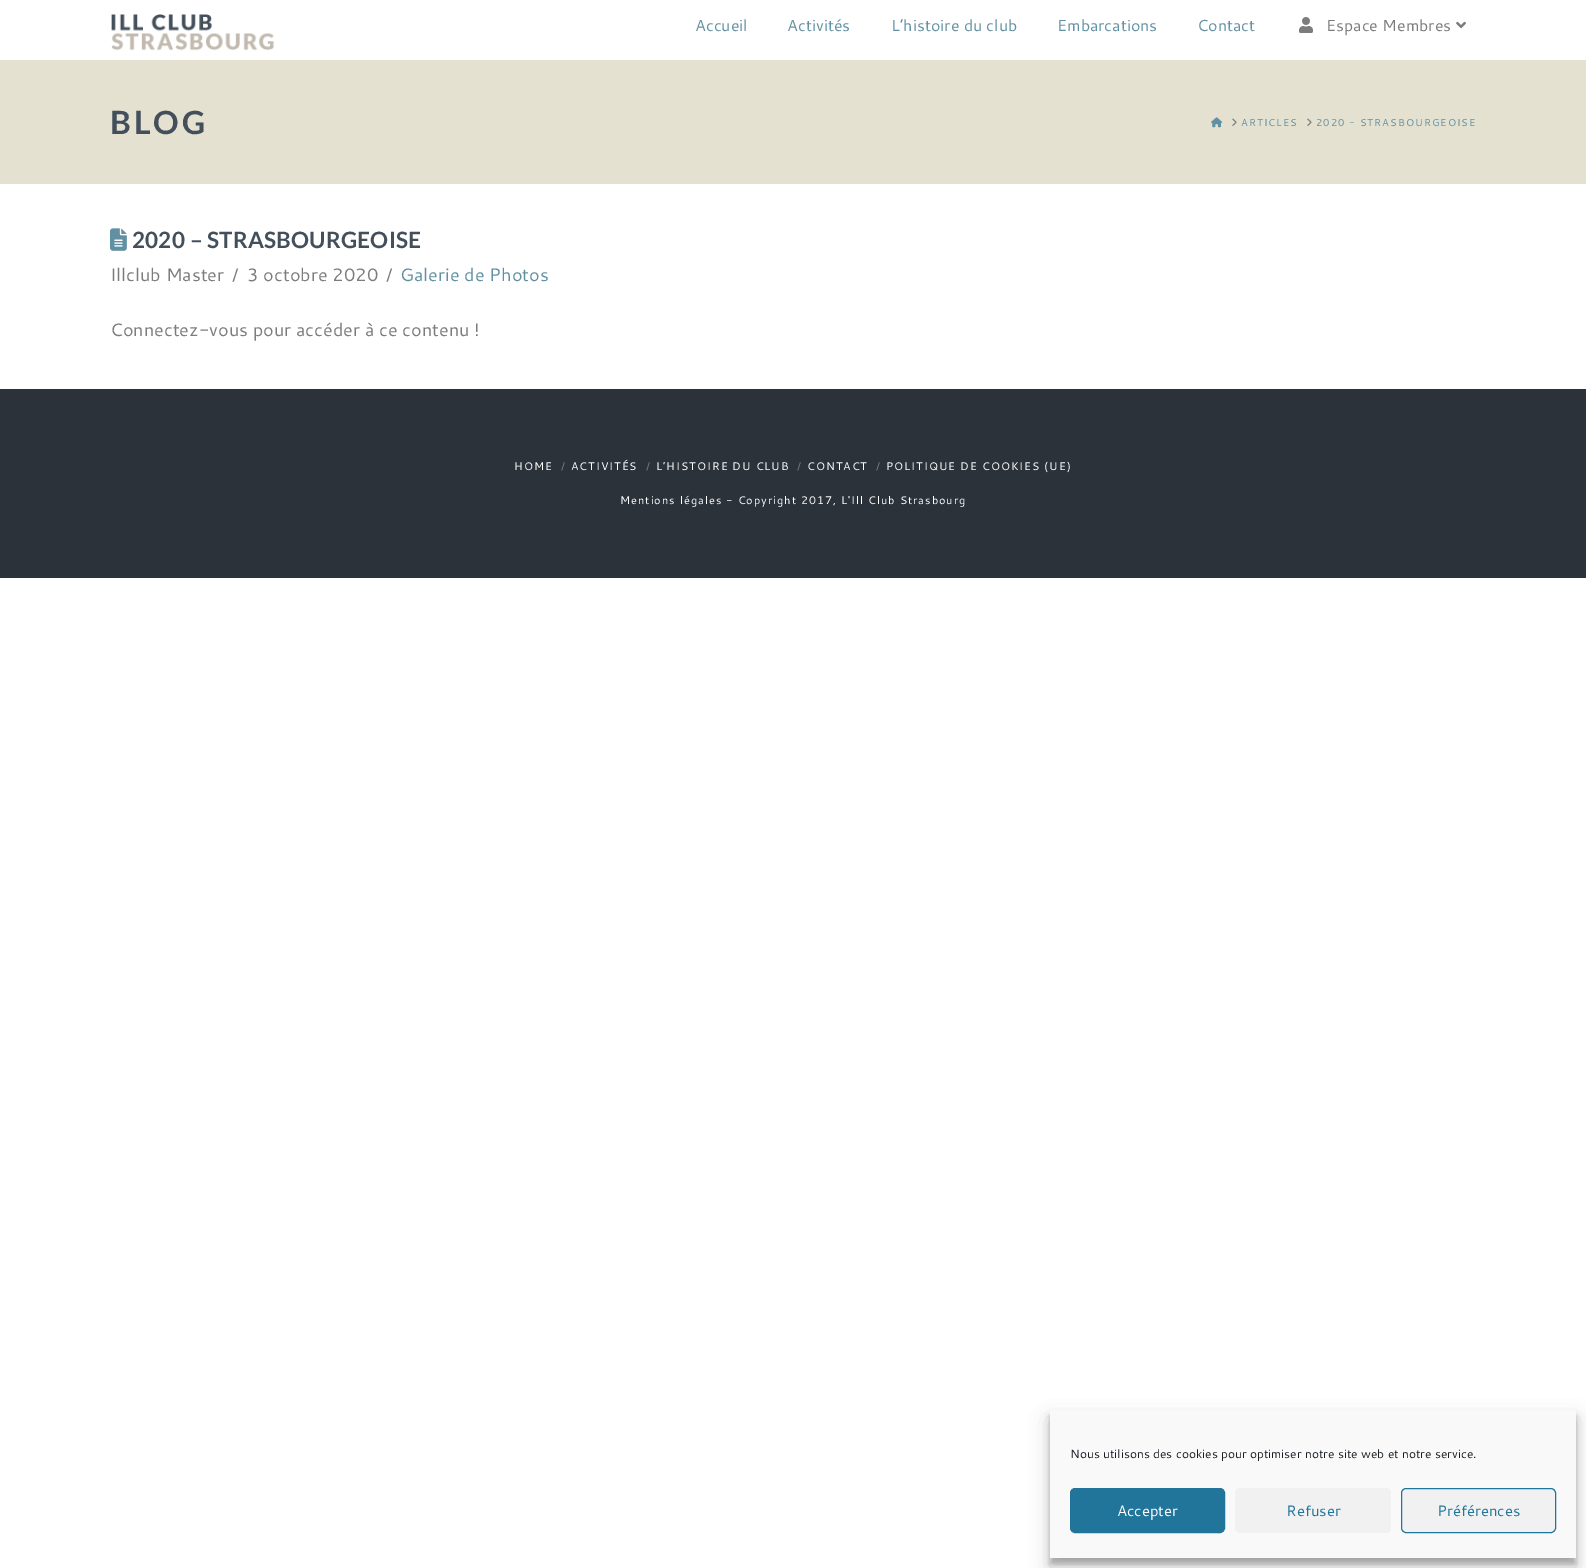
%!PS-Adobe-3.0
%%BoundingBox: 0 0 1586 1568
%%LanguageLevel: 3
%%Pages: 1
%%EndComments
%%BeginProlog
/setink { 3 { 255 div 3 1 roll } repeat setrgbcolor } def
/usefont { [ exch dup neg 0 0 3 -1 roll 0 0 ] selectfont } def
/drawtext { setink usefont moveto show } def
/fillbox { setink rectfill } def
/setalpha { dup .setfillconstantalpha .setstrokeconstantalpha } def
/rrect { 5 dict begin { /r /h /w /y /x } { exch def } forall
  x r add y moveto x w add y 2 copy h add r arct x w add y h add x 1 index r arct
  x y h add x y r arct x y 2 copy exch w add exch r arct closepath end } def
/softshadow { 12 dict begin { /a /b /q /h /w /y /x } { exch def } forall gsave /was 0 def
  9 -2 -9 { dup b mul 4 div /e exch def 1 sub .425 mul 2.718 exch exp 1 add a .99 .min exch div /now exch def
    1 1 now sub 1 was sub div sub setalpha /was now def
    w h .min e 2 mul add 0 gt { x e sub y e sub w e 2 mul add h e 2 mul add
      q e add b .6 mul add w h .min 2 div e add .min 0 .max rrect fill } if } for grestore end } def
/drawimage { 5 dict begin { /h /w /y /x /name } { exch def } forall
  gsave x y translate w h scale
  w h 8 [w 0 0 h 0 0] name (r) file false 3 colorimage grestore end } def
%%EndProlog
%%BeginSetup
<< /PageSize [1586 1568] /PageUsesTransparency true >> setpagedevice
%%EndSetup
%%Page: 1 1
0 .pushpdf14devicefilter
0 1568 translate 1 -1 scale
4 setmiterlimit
0 0 1586 1568 255 255 255 fillbox
(assets/img1.rgb) 111 14 163 37 drawimage
(Accueil) 695 31 /Cantarell-Regular 16 97 144 162 drawtext
(Activités) 787 31 /Cantarell-Regular 16 97 144 162 drawtext
(L’histoire du club) 891 31 /Cantarell-Regular 16 97 144 162 drawtext
(Embarcations) 1057 31 /Cantarell-Regular 16 97 144 162 drawtext
(Contact) 1197 31 /Cantarell-Regular 16 97 144 162 drawtext
(assets/img2.rgb) 1299 17 14 16 drawimage
(Espace Membres) 1326 31 /Cantarell-Regular 16 124 124 124 drawtext
(assets/img3.rgb) 1456 21 10 8 drawimage
0 60 1586 124 228 225 208 fillbox
/Lato-Bold 32 usefont
67 79 91 setink
110 134 moveto 3 0 (BLOG) ashow
(assets/img4.rgb) 1211 117 12 11 drawimage
(assets/img5.rgb) 1232 118 5 8 drawimage
/Cantarell-Regular 10 usefont
97 144 162 setink
1241 126 moveto 1 0 (ARTICLES) ashow
(assets/img5.rgb) 1307 118 5 8 drawimage
1316 126 moveto 1 0 (2020 - STRASBOURGEOISE) ashow
(assets/img6.rgb) 110 228 17 23 drawimage
/Lato-Bold 22.5 usefont
67 79 91 setink
132 248 moveto 0.2 0 (2020 – STRASBOURGEOISE) ashow
(Illclub Master) 110 281 /Cantarell-Regular 18 124 124 124 drawtext
(/) 232 281 /Cantarell-Regular 18 124 124 124 drawtext
(3 octobre 2020) 247 281 /Cantarell-Regular 18 124 124 124 drawtext
(/) 386 281 /Cantarell-Regular 18 124 124 124 drawtext
(Galerie de Photos) 400 281 /Cantarell-Regular 18 97 144 162 drawtext
(Connectez-vous pour accéder à ce contenu !) 110 336 /Cantarell-Regular 18 124 124 124 drawtext
0 389 1586 189 43 50 58 fillbox
/Cantarell-Regular 11 usefont
255 255 255 setink
514 470 moveto 1 0 (HOME) ashow
(/) 561 470 /Cantarell-Regular 11 117 122 127 drawtext
255 255 255 setink
571 470 moveto 1 0 (ACTIVITÉS) ashow
(/) 646 470 /Cantarell-Regular 11 117 122 127 drawtext
255 255 255 setink
656 470 moveto 1 0 (L’HISTOIRE DU CLUB) ashow
(/) 797 470 /Cantarell-Regular 11 117 122 127 drawtext
255 255 255 setink
807 470 moveto 1 0 (CONTACT) ashow
(/) 876 470 /Cantarell-Regular 11 117 122 127 drawtext
255 255 255 setink
886 470 moveto 1 0 (POLITIQUE DE COOKIES \(UE\)) ashow
620 504 moveto 1 0 (Mentions légales - Copyright 2017, L'Ill Club Strasbourg) ashow
0 0 0 setink
1050 1416 526 148 0 3 0.23 softshadow
1050 1420 526 148 0 10 0.19 softshadow
1050 1410 526 148 249 249 249 fillbox
(Nous utilisons des cookies pour optimiser notre site web et notre service.) 1070 1458 /Cantarell-Regular 12 25 30 35 drawtext
33 117 155 setink
1070.5 1488.5 154 44 4.5 rrect gsave fill grestore
stroke
(Accepter) 1117 1516 /Cantarell-Regular 15 255 255 255 drawtext
241 241 241 setink
1235 1488 156 45 5 rrect fill
(Refuser) 1286 1516 /Cantarell-Regular 15 33 117 155 drawtext
241 241 241 setink
1401.5 1488.5 154 44 4.5 rrect gsave fill grestore
33 117 155 setink
stroke
(Préférences) 1437 1516 /Cantarell-Regular 15 33 117 155 drawtext
.poppdf14devicefilter showpage
%%EOF
